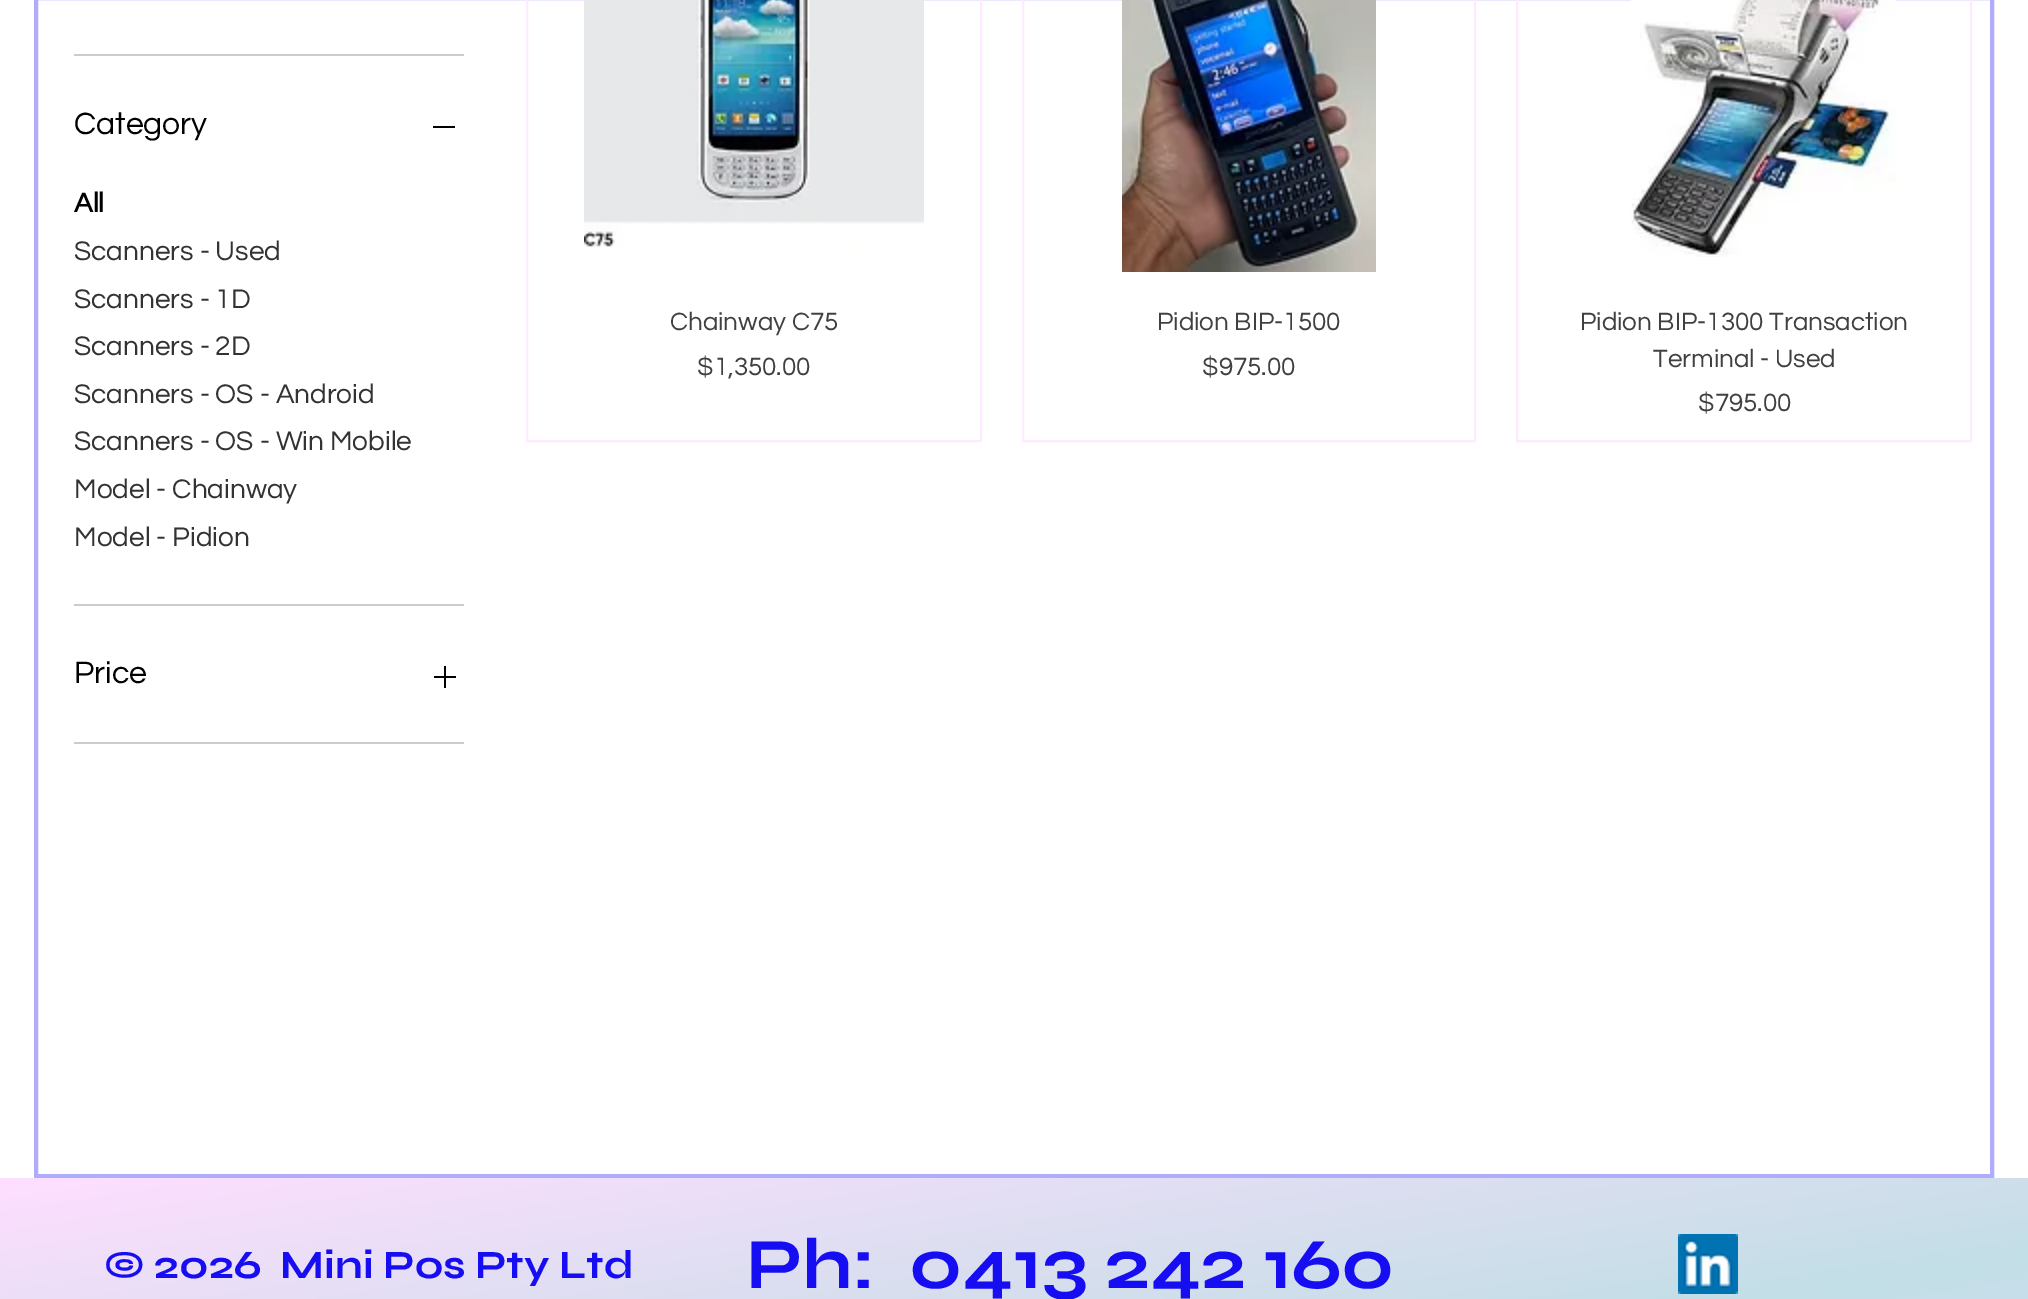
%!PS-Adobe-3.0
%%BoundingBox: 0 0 2028 1299
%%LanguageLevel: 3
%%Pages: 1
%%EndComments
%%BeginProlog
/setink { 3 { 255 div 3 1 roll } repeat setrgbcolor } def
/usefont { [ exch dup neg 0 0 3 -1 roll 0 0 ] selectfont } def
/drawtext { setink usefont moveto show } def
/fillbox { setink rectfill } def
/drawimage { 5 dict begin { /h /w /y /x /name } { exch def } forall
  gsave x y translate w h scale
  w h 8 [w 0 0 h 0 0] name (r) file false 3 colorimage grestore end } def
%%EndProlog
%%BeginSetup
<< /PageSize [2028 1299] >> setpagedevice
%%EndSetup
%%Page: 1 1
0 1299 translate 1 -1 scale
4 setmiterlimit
0 0 2028 1299 255 255 255 fillbox
175 172 251 setink
4 setlinewidth
36 -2 1956 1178 rectstroke
74 54 390 2 204 204 204 fillbox
74 604 390 2 204 204 204 fillbox
(Category) 74 134 /Questrial-Regular 32 0 0 0 drawtext
433 126 22 2 0 0 0 fillbox
(All) 74 212 /Questrial-Bold 28 0 0 0 drawtext
(Scanners - Used) 74 260 /Questrial-Regular 28 51 51 51 drawtext
(Scanners - 1D) 74 308 /Questrial-Regular 28 51 51 51 drawtext
(Scanners - 2D) 74 355 /Questrial-Regular 28 51 51 51 drawtext
(Scanners - OS - Android) 74 403 /Questrial-Regular 28 51 51 51 drawtext
(Scanners - OS - Win Mobile) 74 450 /Questrial-Regular 28 51 51 51 drawtext
(Model - Chainway) 74 498 /Questrial-Regular 28 51 51 51 drawtext
(Model - Pidion) 74 546 /Questrial-Regular 28 51 51 51 drawtext
74 742 390 2 204 204 204 fillbox
(Price) 74 683 /Questrial-Regular 32 0 0 0 drawtext
(assets/img1.rgb) 434 666 22 22 drawimage
255 235 255 setink
2 setlinewidth
527 -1 454 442 rectstroke
(assets/img2.rgb) 584 0 340 247 drawimage
(Chainway C75) 670 330 /Questrial-Regular 26 64 64 64 drawtext
($1,350.00) 697 375 /Questrial-Regular 26 64 64 64 drawtext
255 235 255 setink
1023 -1 452 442 rectstroke
(assets/img3.rgb) 1122 0 254 272 drawimage
(Pidion BIP-1500) 1157 330 /Questrial-Regular 26 64 64 64 drawtext
($975.00) 1202 375 /Questrial-Regular 26 64 64 64 drawtext
255 235 255 setink
1517 -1 454 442 rectstroke
(assets/img4.rgb) 1631 0 265 257 drawimage
(Pidion BIP-1300 Transaction) 1580 330 /Questrial-Regular 26 64 64 64 drawtext
(Terminal - Used) 1653 367 /Questrial-Regular 26 64 64 64 drawtext
($795.00) 1698 411 /Questrial-Regular 26 64 64 64 drawtext
gsave 0 1178 moveto 2028 1178 lineto 2028 1299 lineto 0 1299 lineto closepath clip newpath
<< /ShadingType 2 /ColorSpace /DeviceRGB /Coords [968 1025 1060 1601] /Extend [true true] /Function << /FunctionType 3 /Domain [0 1] /Functions [<< /FunctionType 2 /Domain [0 1] /C0 [1 0.871 1] /C1 [0.761 0.871 0.902] /N 1 >> << /FunctionType 2 /Domain [0 1] /C0 [0.761 0.871 0.902] /C1 [0.875 0.867 0.996] /N 1 >>] /Bounds [0.68] /Encode [0 1 0 1] >> >> shfill grestore
(© 2026  Mini Pos Pty Ltd) 104 1278 /Syne-Bold 40 23 13 242 drawtext
(Ph:  0413 242 160) 746 1288 /Syne-Bold 72 23 13 242 drawtext
(assets/img5.rgb) 1678 1234 60 60 drawimage
showpage
%%EOF
